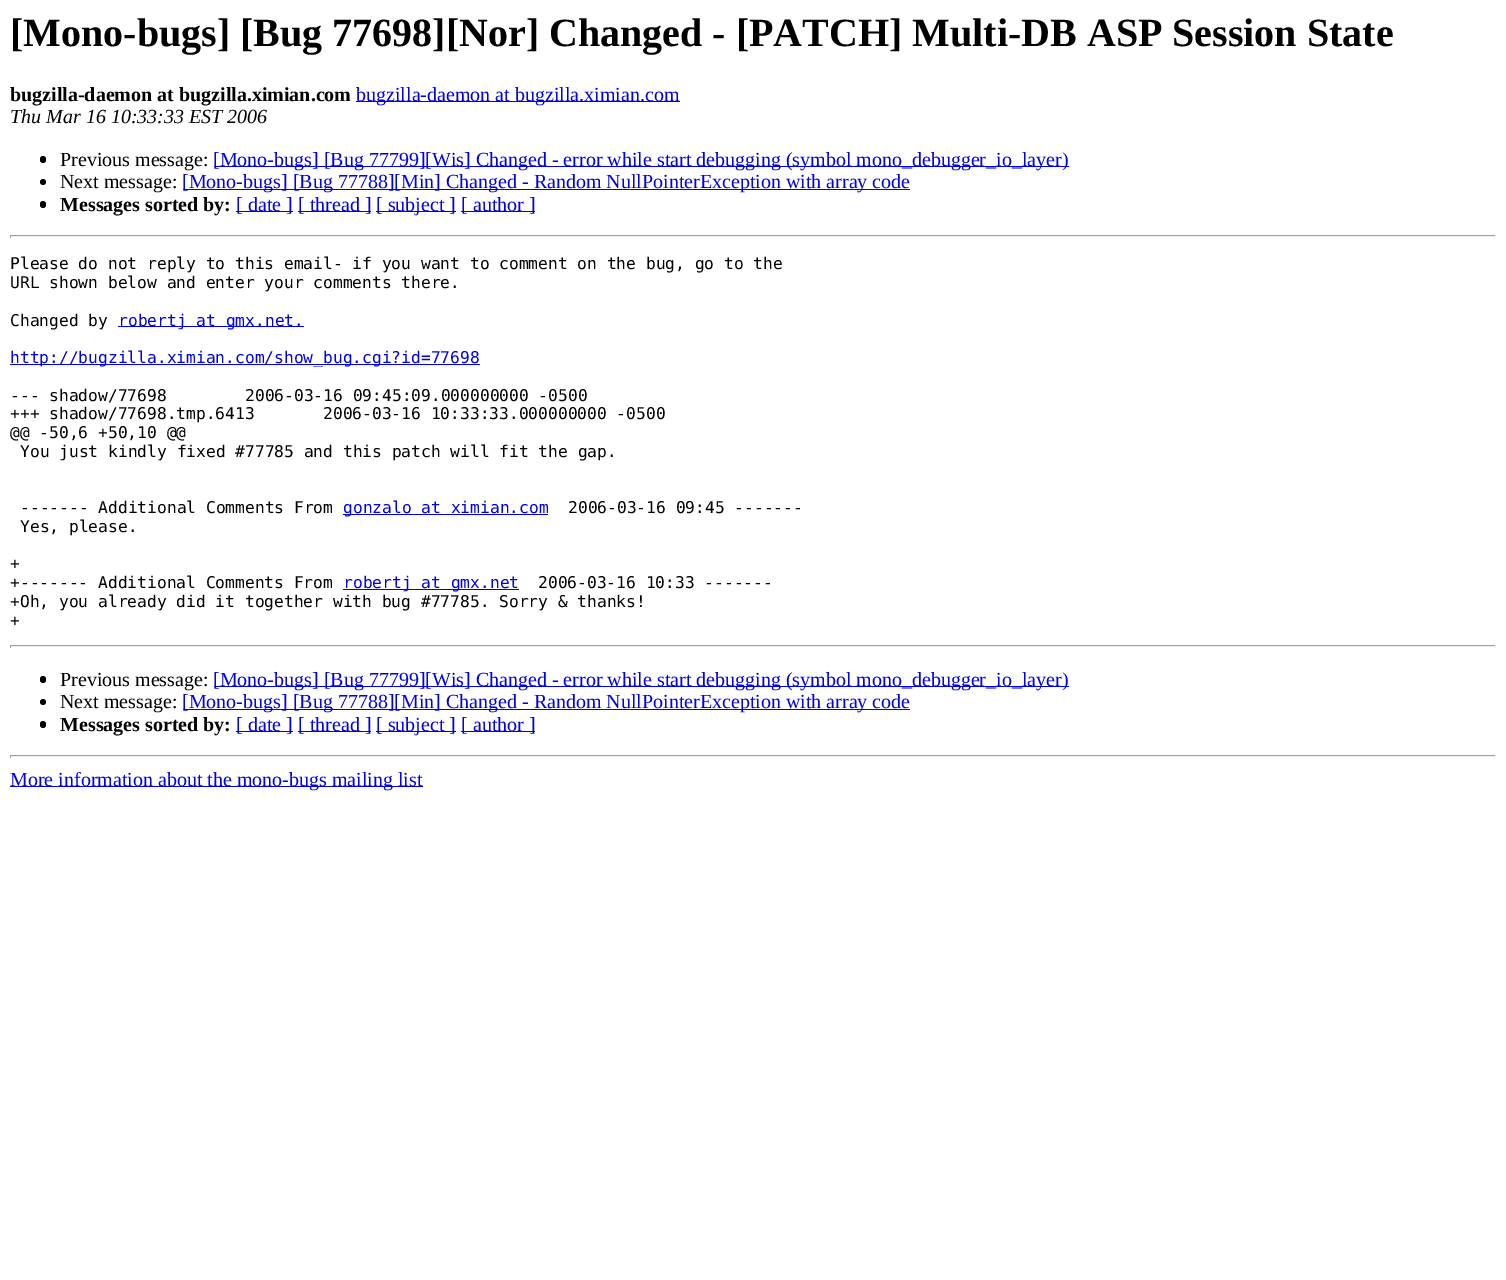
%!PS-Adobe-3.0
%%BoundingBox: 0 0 1506 1280
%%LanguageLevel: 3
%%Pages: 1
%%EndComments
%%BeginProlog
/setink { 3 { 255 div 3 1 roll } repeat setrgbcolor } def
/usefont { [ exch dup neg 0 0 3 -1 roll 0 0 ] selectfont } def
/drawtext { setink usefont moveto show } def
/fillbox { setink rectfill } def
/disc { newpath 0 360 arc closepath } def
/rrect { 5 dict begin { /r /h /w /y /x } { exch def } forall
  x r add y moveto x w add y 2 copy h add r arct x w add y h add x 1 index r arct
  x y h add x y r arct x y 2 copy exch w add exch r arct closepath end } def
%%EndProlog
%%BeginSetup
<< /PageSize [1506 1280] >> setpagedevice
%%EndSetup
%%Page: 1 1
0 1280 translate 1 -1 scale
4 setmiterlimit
0 0 1506 1280 255 255 255 fillbox
([Mono-bugs] [Bug 77698][Nor] Changed - [PATCH] Multi-DB ASP Session State) 10 46 /LiberationSerif-Bold 40 0 0 0 drawtext
(bugzilla-daemon at bugzilla.ximian.com) 10 101 /LiberationSerif-Bold 20 0 0 0 drawtext
356 101 324 1 0 0 238 fillbox
(bugzilla-daemon at bugzilla.ximian.com) 356 101 /LiberationSerif-Regular 20 0 0 238 drawtext
(Thu Mar 16 10:33:33 EST 2006) 10 123 /LiberationSerif-Italic 20 0 0 0 drawtext
40 156 6 7 3 rrect fill
(Previous message:) 60 166 /LiberationSerif-Regular 20 0 0 0 drawtext
214 166 855 1 0 0 238 fillbox
([Mono-bugs] [Bug 77799][Wis] Changed - error while start debugging \(symbol mono_debugger_io_layer\)) 213 166 /LiberationSerif-Regular 20 0 0 238 drawtext
0 0 0 setink
43 182 3 disc fill
(Next message:) 60 188 /LiberationSerif-Regular 20 0 0 0 drawtext
183 189 727 1 0 0 238 fillbox
([Mono-bugs] [Bug 77788][Min] Changed - Random NullPointerException with array code) 182 188 /LiberationSerif-Regular 20 0 0 238 drawtext
0 0 0 setink
40 201 6 7 3 rrect fill
(Messages sorted by:) 60 211 /LiberationSerif-Bold 20 0 0 0 drawtext
236 211 57 1 0 0 238 fillbox
([ date ]) 236 211 /LiberationSerif-Regular 20 0 0 238 drawtext
298 211 73 1 0 0 238 fillbox
([ thread ]) 298 211 /LiberationSerif-Regular 20 0 0 238 drawtext
376 211 80 1 0 0 238 fillbox
([ subject ]) 376 211 /LiberationSerif-Regular 20 0 0 238 drawtext
461 211 74 1 0 0 238 fillbox
([ author ]) 461 211 /LiberationSerif-Regular 20 0 0 238 drawtext
10 235 1486 1 159 159 159 fillbox
1495 235 1 3 238 238 238 fillbox
10 236 1486 1 238 238 238 fillbox
10 235 1 3 159 159 159 fillbox
(Please do not reply to this email- if you want to comment on the bug, go to the) 10 269 /DejaVuSansMono-Regular 16.25 0 0 0 drawtext
(URL shown below and enter your comments there.) 10 288 /DejaVuSansMono-Regular 16.25 0 0 0 drawtext
(Changed by) 10 326 /DejaVuSansMono-Regular 16.25 0 0 0 drawtext
118 326 186 1 0 0 238 fillbox
(robertj at gmx.net.) 118 326 /DejaVuSansMono-Regular 16.25 0 0 238 drawtext
10 364 470 1 0 0 238 fillbox
(http://bugzilla.ximian.com/show_bug.cgi?id=77698) 10 363 /DejaVuSansMono-Regular 16.25 0 0 238 drawtext
(--- shadow/77698) 10 401 /DejaVuSansMono-Regular 16.25 0 0 0 drawtext
(2006-03-16 09:45:09.000000000 -0500) 245 401 /DejaVuSansMono-Regular 16.25 0 0 0 drawtext
(+++ shadow/77698.tmp.6413) 10 419 /DejaVuSansMono-Regular 16.25 0 0 0 drawtext
(2006-03-16 10:33:33.000000000 -0500) 323 419 /DejaVuSansMono-Regular 16.25 0 0 0 drawtext
(@@ -50,6 +50,10 @@) 10 438 /DejaVuSansMono-Regular 16.25 0 0 0 drawtext
(You just kindly fixed #77785 and this patch will fit the gap.) 20 457 /DejaVuSansMono-Regular 16.25 0 0 0 drawtext
(------- Additional Comments From) 20 513 /DejaVuSansMono-Regular 16.25 0 0 0 drawtext
343 514 205 1 0 0 238 fillbox
(gonzalo at ximian.com) 343 513 /DejaVuSansMono-Regular 16.25 0 0 238 drawtext
(2006-03-16 09:45 -------) 568 513 /DejaVuSansMono-Regular 16.25 0 0 0 drawtext
(Yes, please.) 20 532 /DejaVuSansMono-Regular 16.25 0 0 0 drawtext
(+) 10 569 /DejaVuSansMono-Regular 16.25 0 0 0 drawtext
(+------- Additional Comments From) 10 588 /DejaVuSansMono-Regular 16.25 0 0 0 drawtext
343 589 176 1 0 0 238 fillbox
(robertj at gmx.net) 343 588 /DejaVuSansMono-Regular 16.25 0 0 238 drawtext
(2006-03-16 10:33 -------) 538 588 /DejaVuSansMono-Regular 16.25 0 0 0 drawtext
(+Oh, you already did it together with bug #77785. Sorry & thanks!) 10 607 /DejaVuSansMono-Regular 16.25 0 0 0 drawtext
(+) 10 626 /DejaVuSansMono-Regular 16.25 0 0 0 drawtext
10 645 1486 1 159 159 159 fillbox
1495 645 1 3 238 238 238 fillbox
10 646 1486 1 238 238 238 fillbox
10 645 1 3 159 159 159 fillbox
0 0 0 setink
40 676 6 7 3 rrect fill
(Previous message:) 60 686 /LiberationSerif-Regular 20 0 0 0 drawtext
214 686 855 1 0 0 238 fillbox
([Mono-bugs] [Bug 77799][Wis] Changed - error while start debugging \(symbol mono_debugger_io_layer\)) 213 686 /LiberationSerif-Regular 20 0 0 238 drawtext
0 0 0 setink
43 702 3 disc fill
(Next message:) 60 708 /LiberationSerif-Regular 20 0 0 0 drawtext
183 709 727 1 0 0 238 fillbox
([Mono-bugs] [Bug 77788][Min] Changed - Random NullPointerException with array code) 182 708 /LiberationSerif-Regular 20 0 0 238 drawtext
0 0 0 setink
40 721 6 7 3 rrect fill
(Messages sorted by:) 60 731 /LiberationSerif-Bold 20 0 0 0 drawtext
236 731 57 1 0 0 238 fillbox
([ date ]) 236 731 /LiberationSerif-Regular 20 0 0 238 drawtext
298 731 73 1 0 0 238 fillbox
([ thread ]) 298 731 /LiberationSerif-Regular 20 0 0 238 drawtext
376 731 80 1 0 0 238 fillbox
([ subject ]) 376 731 /LiberationSerif-Regular 20 0 0 238 drawtext
461 731 74 1 0 0 238 fillbox
([ author ]) 461 731 /LiberationSerif-Regular 20 0 0 238 drawtext
10 755 1486 1 159 159 159 fillbox
1495 755 1 3 238 238 238 fillbox
10 756 1486 1 238 238 238 fillbox
10 755 1 3 159 159 159 fillbox
10 786 413 1 0 0 238 fillbox
(More information about the mono-bugs mailing list) 10 786 /LiberationSerif-Regular 20 0 0 238 drawtext
showpage
%%EOF
